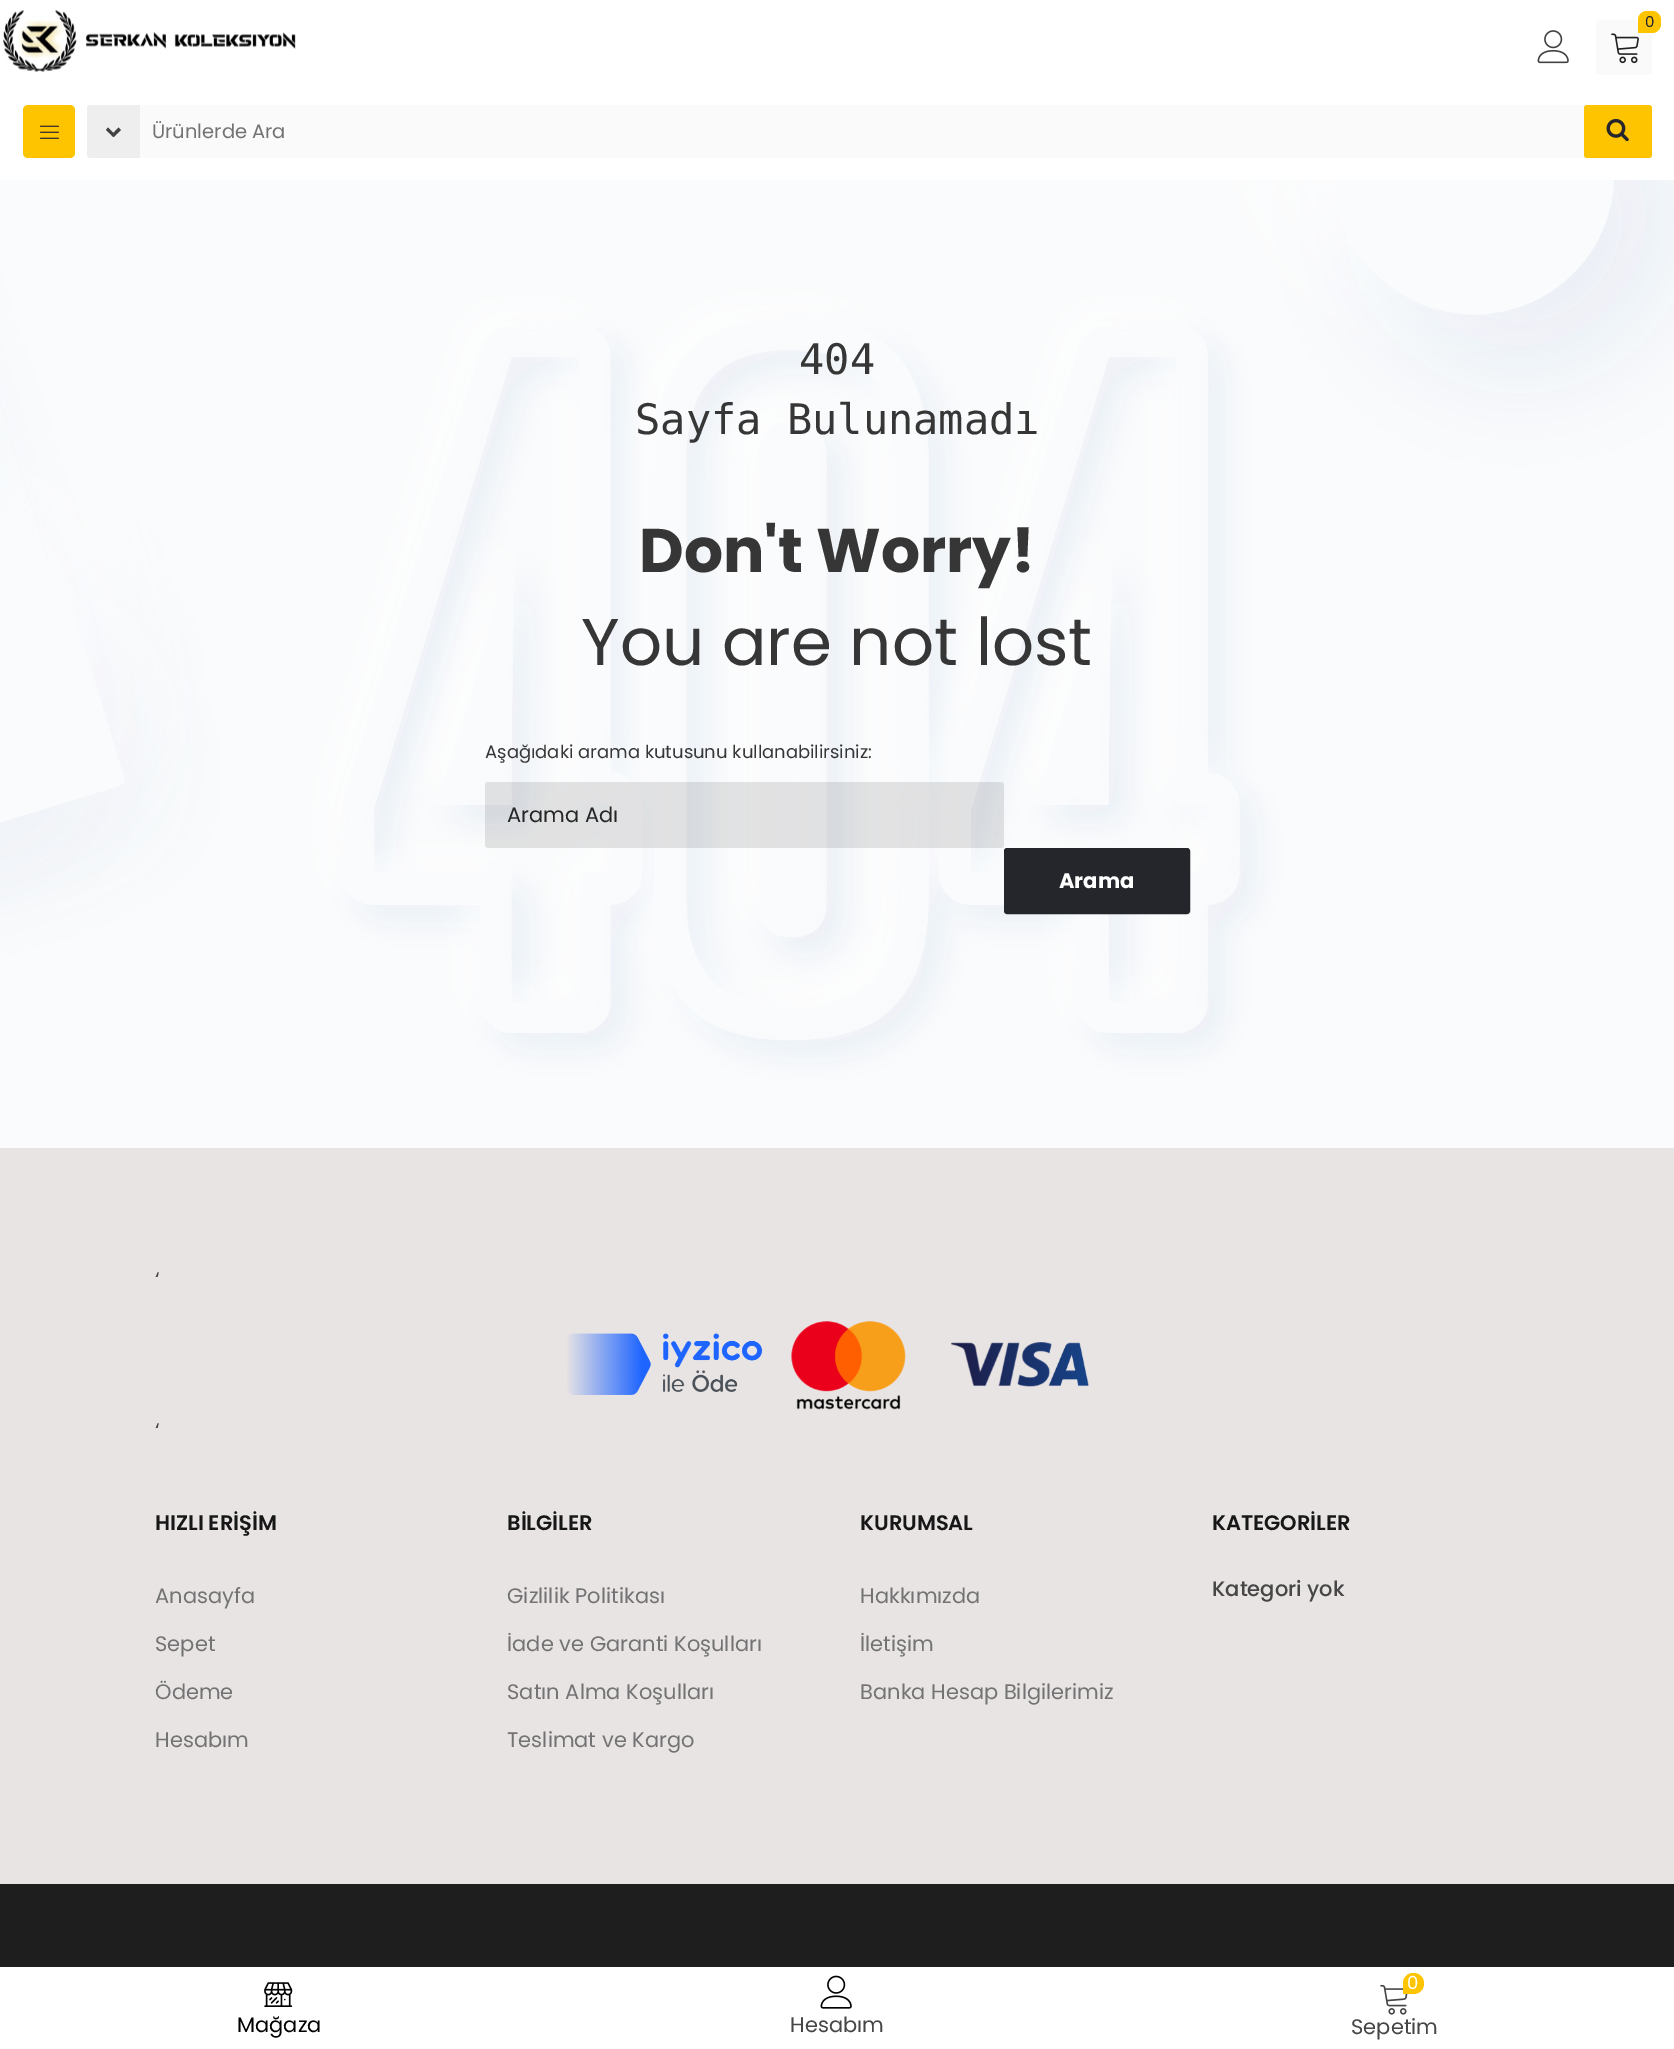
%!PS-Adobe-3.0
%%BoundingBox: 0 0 1674 2049
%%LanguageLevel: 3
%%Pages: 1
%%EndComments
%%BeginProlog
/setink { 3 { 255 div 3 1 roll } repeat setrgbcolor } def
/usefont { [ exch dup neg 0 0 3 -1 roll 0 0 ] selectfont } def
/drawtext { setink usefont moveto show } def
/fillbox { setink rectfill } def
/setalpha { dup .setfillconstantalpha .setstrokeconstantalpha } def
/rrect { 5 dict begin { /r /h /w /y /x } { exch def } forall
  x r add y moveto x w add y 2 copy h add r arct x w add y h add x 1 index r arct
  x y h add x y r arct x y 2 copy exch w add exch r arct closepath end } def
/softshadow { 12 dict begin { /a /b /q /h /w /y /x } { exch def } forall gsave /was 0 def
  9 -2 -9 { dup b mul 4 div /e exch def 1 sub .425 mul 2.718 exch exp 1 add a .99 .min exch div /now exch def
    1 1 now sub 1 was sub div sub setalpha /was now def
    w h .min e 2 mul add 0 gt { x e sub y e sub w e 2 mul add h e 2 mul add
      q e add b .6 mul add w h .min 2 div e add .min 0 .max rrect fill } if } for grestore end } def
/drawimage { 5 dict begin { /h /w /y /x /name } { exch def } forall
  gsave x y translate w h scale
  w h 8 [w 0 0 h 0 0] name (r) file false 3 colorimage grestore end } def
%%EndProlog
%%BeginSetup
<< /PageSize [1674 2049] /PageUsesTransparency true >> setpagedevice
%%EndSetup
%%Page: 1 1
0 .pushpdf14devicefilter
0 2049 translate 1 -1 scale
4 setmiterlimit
0 0 1674 2049 255 255 255 fillbox
(assets/img1.rgb) 3 10 293 62 drawimage
250 250 250 setink
1596 20 56 55 3 rrect fill
255 196 0 setink
1647 11 moveto 1652 11 lineto 1657 11 1661 15 1661 20 curveto 1661 24 lineto 1661 29 1657 33 1652 33 curveto 1638 33 lineto 1638 20 lineto 1638 15 1642 11 1647 11 curveto closepath fill
(0) 1645 27 /Poppins-Regular 15 37 37 45 drawtext
(assets/img2.rgb) 1611 33 28 31 drawimage
(assets/img3.rgb) 1537 30 32 34 drawimage
255 196 0 setink
23 105 52 53 5 rrect fill
(assets/img4.rgb) 39 125 21 14 drawimage
238 238 238 setink
90 105 moveto 140 105 lineto 140 158 lineto 90 158 lineto 88.5 158 87 156.5 87 155 curveto 87 108 lineto 87 106.5 88.5 105 90 105 curveto closepath fill
66 66 66 setink
118.5 127.5 moveto 121 130 lineto 113.5 137 lineto 111.5 135 lineto closepath fill
108 127.5 moveto 115.5 135 lineto 113.5 137 lineto 106 130 lineto closepath fill
140 105 1444 53 250 250 250 fillbox
(Ürünlerde Ara) 152 138 /Poppins-Regular 19.5 115 115 115 drawtext
255 196 0 setink
1584 105 68 53 3 rrect fill
(assets/img5.rgb) 1606 118 23 24 drawimage
(assets/img6.rgb) 0 180 1674 968 drawimage
(404) 799 374 /DejaVuSansMono-Regular 42 54 54 54 drawtext
(Sayfa Bulunamadı) 635 434 /DejaVuSansMono-Regular 42 54 54 54 drawtext
(Don't Worry!) 639 572 /Poppins-Bold 61.5 54 54 54 drawtext
(You are not lost) 581 665 /Poppins-Regular 66 54 54 54 drawtext
(Aşağıdaki arama kutusunu kullanabilirsiniz:) 485 758 /Poppins-Regular 18 54 54 54 drawtext
0.1 setalpha
0 0 0 setink
485 782 519 66 3 rrect fill
1 setalpha
(Arama Adı) 507 822 /Poppins-Regular 21 38 38 38 drawtext
36 38 43 setink
1005.5 849.5 183 63 1.5 rrect gsave fill grestore
3 setlinewidth
stroke
(Arama) 1059 888 /Poppins-Bold 21 255 255 255 drawtext
0 1148 1674 736 233 228 228 fillbox
(‘) 155 1287 /Poppins-Regular 21 70 70 70 drawtext
(assets/img7.rgb) 567 1333 196 62 drawimage
(assets/img8.rgb) 791 1321 115 89 drawimage
(assets/img9.rgb) 951 1342 138 45 drawimage
(‘) 155 1438 /Poppins-Regular 21 70 70 70 drawtext
(HIZLI ERİŞİM) 155 1530 /Poppins-SemiBold 21 23 23 23 drawtext
(Anasayfa) 155 1603 /Poppins-Regular 21 115 115 115 drawtext
(Sepet) 155 1651 /Poppins-Regular 21 115 115 115 drawtext
(Ödeme) 155 1699 /Poppins-Regular 21 115 115 115 drawtext
(Hesabım) 155 1747 /Poppins-Regular 21 115 115 115 drawtext
(BİLGİLER) 507 1530 /Poppins-SemiBold 21 23 23 23 drawtext
(Gizlilik Politikası) 507 1603 /Poppins-Regular 21 115 115 115 drawtext
(İade ve Garanti Koşulları) 507 1651 /Poppins-Regular 21 115 115 115 drawtext
(Satın Alma Koşulları) 507 1699 /Poppins-Regular 21 115 115 115 drawtext
(Teslimat ve Kargo) 507 1747 /Poppins-Regular 21 115 115 115 drawtext
(KURUMSAL) 860 1530 /Poppins-SemiBold 21 23 23 23 drawtext
(Hakkımızda) 860 1603 /Poppins-Regular 21 115 115 115 drawtext
(İletişim) 860 1651 /Poppins-Regular 21 115 115 115 drawtext
(Banka Hesap Bilgilerimiz) 860 1699 /Poppins-Regular 21 115 115 115 drawtext
(KATEGORİLER) 1212 1530 /Poppins-SemiBold 21 23 23 23 drawtext
(Kategori yok) 1212 1596 /Poppins-Medium 21 70 70 70 drawtext
0 1884 1674 83 30 30 30 fillbox
0 0 0 setink
0 1964 1674 82 0 3 0.08 softshadow
0 1967 1674 82 255 255 255 fillbox
(assets/img10.rgb) 264 1982 29 25 drawimage
(Mağaza) 237 2032 /Poppins-Regular 21 0 0 0 drawtext
(assets/img11.rgb) 820 1975 32 34 drawimage
(Hesabım) 790 2032 /Poppins-Regular 21 70 70 70 drawtext
(assets/img12.rgb) 1380 1984 28 31 drawimage
255 196 0 setink
1413.5 1973 moveto 1419.5 1973 1424 1977.5 1424 1983.5 curveto 1424 1989.5 1419.5 1994 1413.5 1994 curveto 1403 1994 lineto 1403 1983.5 lineto 1403 1977.5 1407.5 1973 1413.5 1973 curveto closepath fill
(0) 1407 1989 /Poppins-Regular 18 255 255 255 drawtext
(Sepetim) 1351 2034 /Poppins-Regular 21 70 70 70 drawtext
.poppdf14devicefilter showpage
%%EOF
